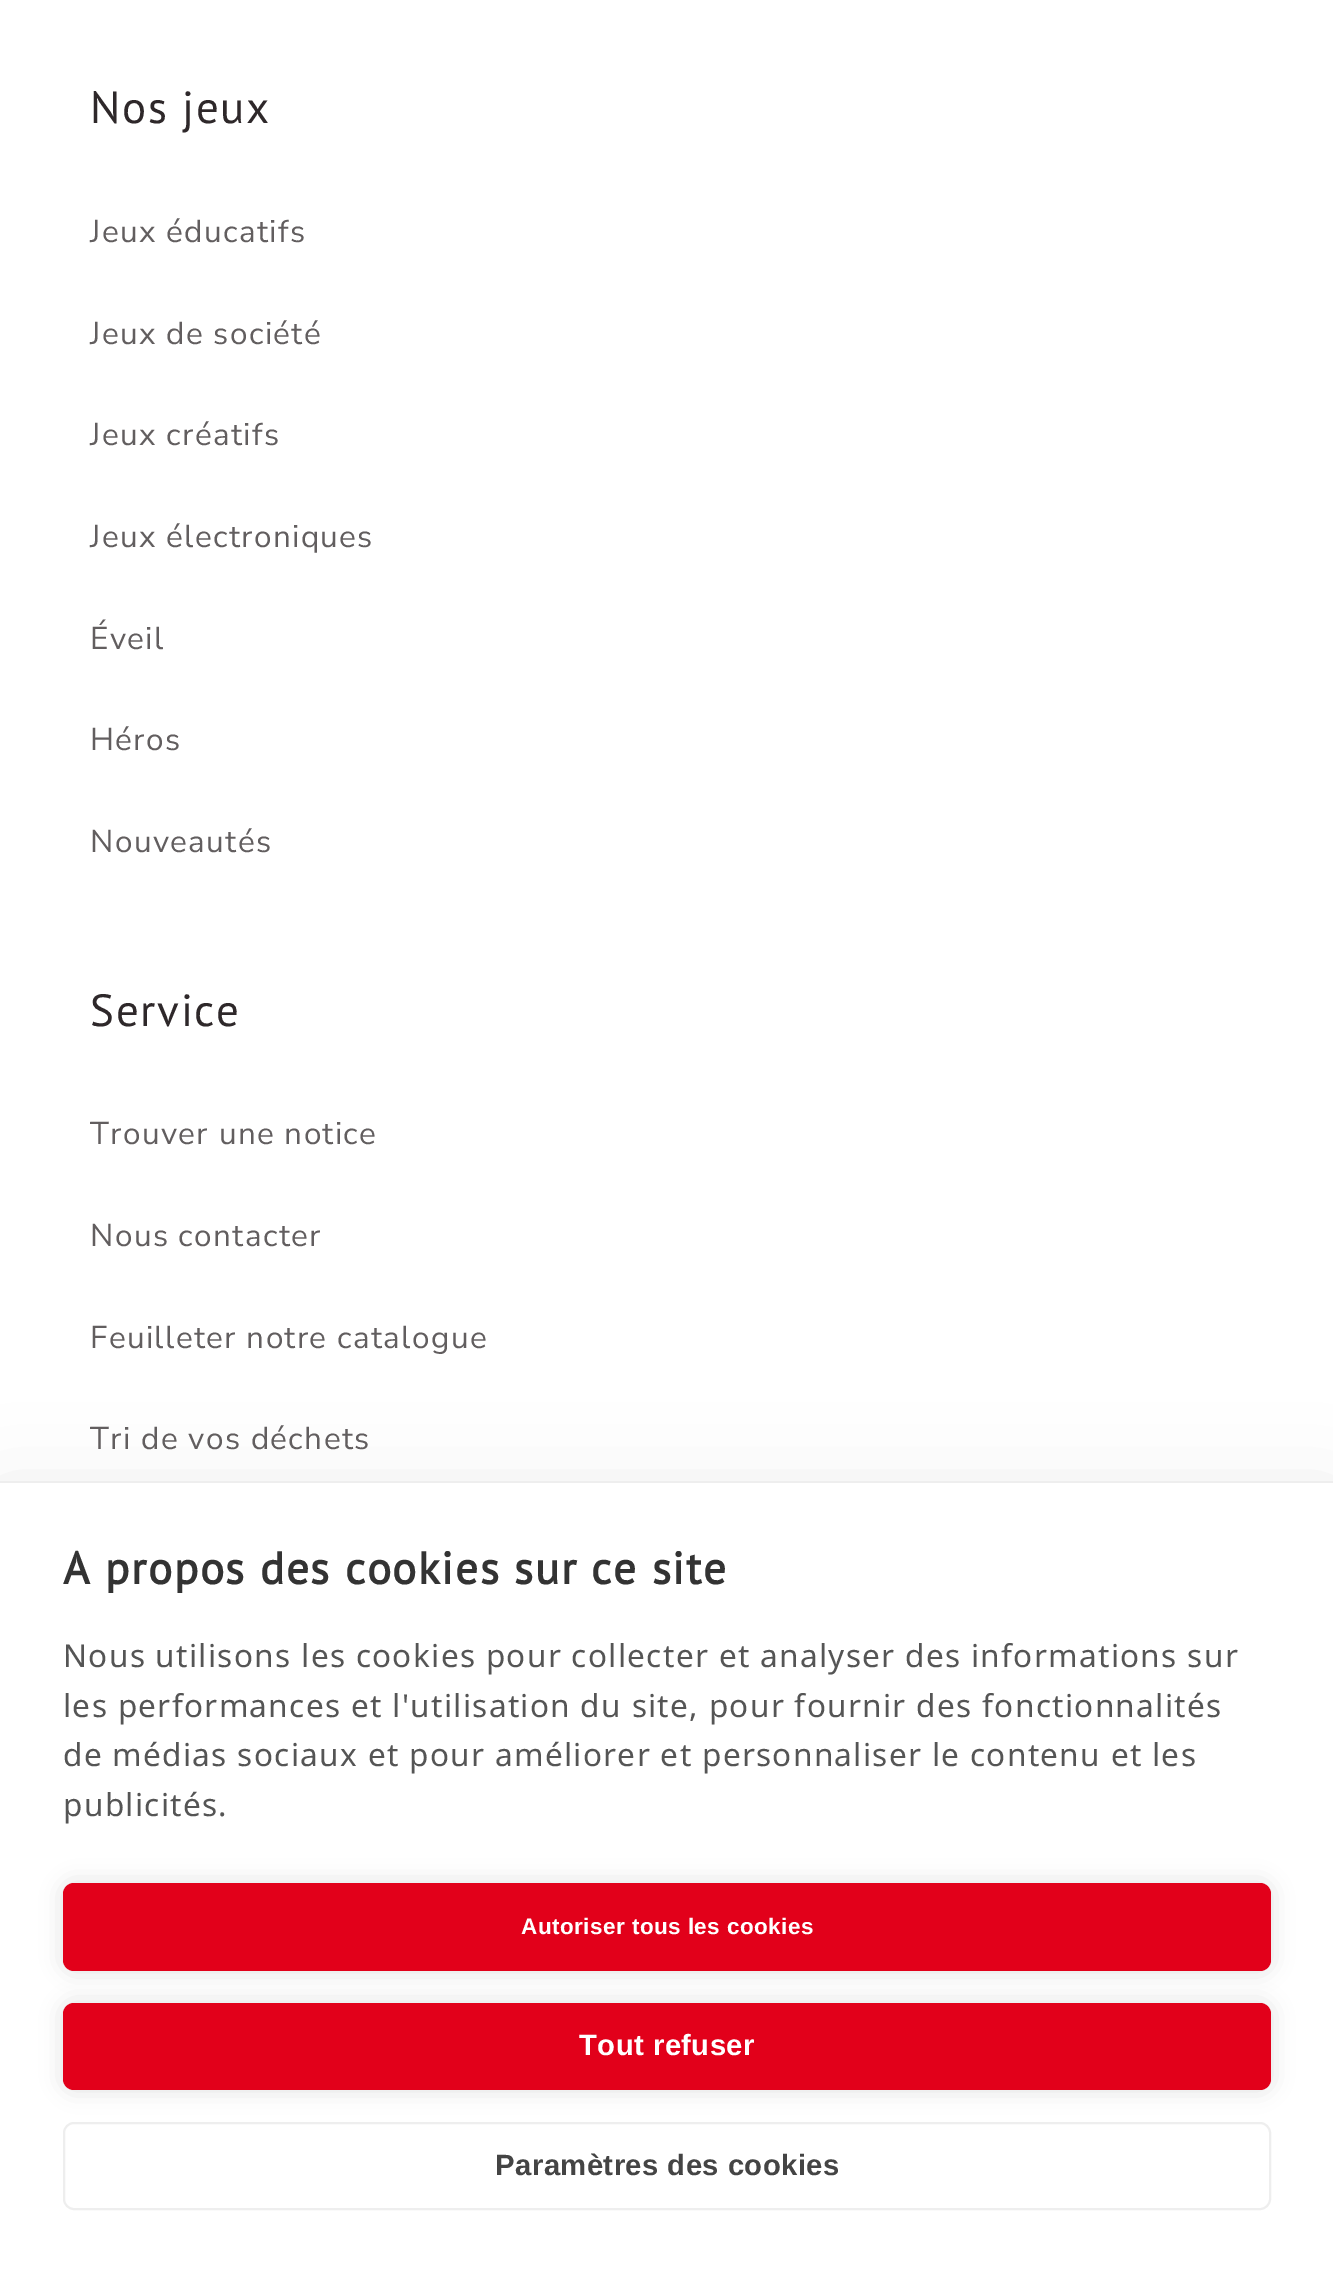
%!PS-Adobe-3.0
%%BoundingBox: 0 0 1333 2271
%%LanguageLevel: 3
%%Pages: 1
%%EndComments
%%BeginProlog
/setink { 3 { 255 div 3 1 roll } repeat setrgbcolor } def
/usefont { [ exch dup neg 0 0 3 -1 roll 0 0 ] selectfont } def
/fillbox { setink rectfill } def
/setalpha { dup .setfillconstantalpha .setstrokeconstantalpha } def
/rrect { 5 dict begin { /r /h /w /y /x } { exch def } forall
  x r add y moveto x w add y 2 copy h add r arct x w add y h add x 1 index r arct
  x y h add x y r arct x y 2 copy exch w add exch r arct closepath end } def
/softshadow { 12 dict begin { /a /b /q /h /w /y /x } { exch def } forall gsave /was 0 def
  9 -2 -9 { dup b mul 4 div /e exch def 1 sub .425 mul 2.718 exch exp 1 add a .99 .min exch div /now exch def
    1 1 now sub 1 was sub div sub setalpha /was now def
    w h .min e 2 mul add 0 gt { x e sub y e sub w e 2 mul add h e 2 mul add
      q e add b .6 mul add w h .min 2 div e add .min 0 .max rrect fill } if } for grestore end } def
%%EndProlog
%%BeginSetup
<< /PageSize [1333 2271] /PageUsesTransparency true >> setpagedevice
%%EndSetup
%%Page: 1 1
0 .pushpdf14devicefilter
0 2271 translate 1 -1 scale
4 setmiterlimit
0 0 1333 2271 255 255 255 fillbox
/PTSans-Regular 45 usefont
46 40 42 setink
90 123 moveto 1.7 0 (Nos jeux) ashow
/NunitoSans-Regular 31.5 usefont
98 94 95 setink
90 242 moveto 1.35 0 (Jeux éducatifs) ashow
90 344 moveto 1.35 0 (Jeux de société) ashow
90 445 moveto 1.35 0 (Jeux créatifs) ashow
90 547 moveto 1.35 0 (Jeux électroniques) ashow
90 649 moveto 1.35 0 (Éveil) ashow
90 750 moveto 1.35 0 (Héros) ashow
90 852 moveto 1.35 0 (Nouveautés) ashow
/PTSans-Regular 45 usefont
46 40 42 setink
90 1026 moveto 1.7 0 (Service) ashow
/NunitoSans-Regular 31.5 usefont
98 94 95 setink
90 1144 moveto 1.35 0 (Trouver une notice) ashow
90 1246 moveto 1.35 0 (Nous contacter) ashow
90 1348 moveto 1.35 0 (Feuilleter notre catalogue) ashow
90 1449 moveto 1.35 0 (Tri de vos déchets) ashow
0 0 0 setink
0 1503 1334 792 0 45 0.1 softshadow
0 1483 1333 788 255 255 255 fillbox
0 1481 1333 2 238 238 238 fillbox
/PTSans-Bold 45 usefont
51 51 51 setink
63 1584 moveto 1.7 0 (A propos des cookies sur ce site) ashow
/NotoSans-Regular 31.5 usefont
85 85 85 setink
63 1667 moveto 1.35 0 (Nous utilisons les cookies pour collecter et analyser des informations sur) ashow
63 1717 moveto 1.35 0 (les performances et l'utilisation du site, pour fournir des fonctionnalités) ashow
63 1766 moveto 1.35 0 (de médias sociaux et pour améliorer et personnaliser le contenu et les) ashow
63 1816 moveto 1.35 0 (publicités.) ashow
0 0 0 setink
63 1883 1208 88 11 11 0.12 softshadow
226 0 26 setink
63 1883 1208 88 11 rrect fill
/LiberationSans-Bold 22.5 usefont
255 255 255 setink
521 1934 moveto 0.45 0 (Autoriser tous les cookies) ashow
0 0 0 setink
63 2003 1208 87 11 11 0.12 softshadow
226 0 26 setink
63 2003 1208 87 11 rrect fill
/LiberationSans-Bold 29.25 usefont
255 255 255 setink
579 2055 moveto 0.45 0 (Tout refuser) ashow
238 238 238 setink
2 setlinewidth
64 2123 1206 86 10 rrect stroke
68 68 68 setink
495 2175 moveto 0.45 0 (Paramètres des cookies) ashow
.poppdf14devicefilter showpage
%%EOF
